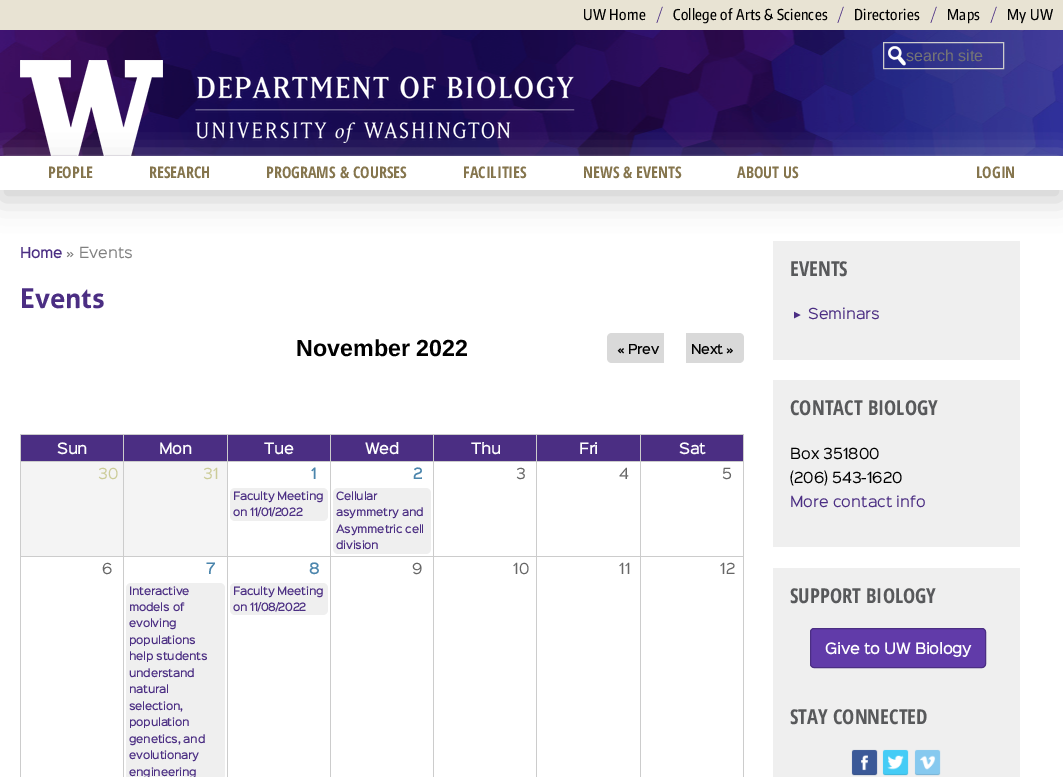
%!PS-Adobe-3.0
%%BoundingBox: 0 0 1063 777
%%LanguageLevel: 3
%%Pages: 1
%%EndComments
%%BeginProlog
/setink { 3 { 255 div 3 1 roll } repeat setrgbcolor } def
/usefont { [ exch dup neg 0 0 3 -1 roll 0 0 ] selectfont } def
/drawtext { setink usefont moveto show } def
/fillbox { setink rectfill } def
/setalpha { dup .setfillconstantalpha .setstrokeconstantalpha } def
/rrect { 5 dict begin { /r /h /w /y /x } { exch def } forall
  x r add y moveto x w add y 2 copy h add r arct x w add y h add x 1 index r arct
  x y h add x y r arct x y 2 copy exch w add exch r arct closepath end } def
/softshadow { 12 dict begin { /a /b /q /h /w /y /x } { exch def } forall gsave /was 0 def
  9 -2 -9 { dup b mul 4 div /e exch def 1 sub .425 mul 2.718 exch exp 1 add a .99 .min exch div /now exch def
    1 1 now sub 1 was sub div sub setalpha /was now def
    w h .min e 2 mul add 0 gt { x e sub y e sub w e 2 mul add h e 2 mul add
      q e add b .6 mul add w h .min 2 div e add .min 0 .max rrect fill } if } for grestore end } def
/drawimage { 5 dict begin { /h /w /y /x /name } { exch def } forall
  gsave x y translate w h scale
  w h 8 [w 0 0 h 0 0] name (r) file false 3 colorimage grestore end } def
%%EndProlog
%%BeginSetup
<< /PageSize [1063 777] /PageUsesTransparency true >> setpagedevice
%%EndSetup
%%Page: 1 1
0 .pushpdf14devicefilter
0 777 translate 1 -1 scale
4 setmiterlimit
0 0 1063 777 255 255 255 fillbox
(assets/img1.rgb) 0 30 1063 126 drawimage
0 0 1063 30 232 227 211 fillbox
/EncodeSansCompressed-Medium 14.9 usefont
0 0 0 setink
583 20 moveto 0.3 0 (UW Home) ashow
(assets/img2.rgb) 656 6 7 17 drawimage
673 20 moveto 0.3 0 (College of Arts & Sciences) ashow
(assets/img2.rgb) 837 6 7 17 drawimage
854 20 moveto 0.3 0 (Directories) ashow
(assets/img2.rgb) 930 6 7 17 drawimage
947 20 moveto 0.3 0 (Maps) ashow
(assets/img2.rgb) 990 6 7 17 drawimage
1007 20 moveto 0.3 0 (My UW) ashow
(assets/img3.rgb) 888 46 18 20 drawimage
204 204 204 setink
883.5 42.5 120 26 rectstroke
(search site) 906 61 /LiberationSans-Regular 16 117 117 117 drawtext
(assets/img4.rgb) 20 60 143 96 drawimage
(assets/img5.rgb) 195 76 380 67 drawimage
773 241 247 119 239 239 239 fillbox
204 204 204 setink
0 166 1063 34 0 15 1 softshadow
0 156 1063 34 255 255 255 fillbox
(PEOPLE) 48 178 /OpenSansCondensed-Bold 16 133 117 77 drawtext
(RESEARCH) 149 178 /OpenSansCondensed-Bold 16 133 117 77 drawtext
(PROGRAMS & COURSES) 266 178 /OpenSansCondensed-Bold 16 133 117 77 drawtext
(FACILITIES) 463 178 /OpenSansCondensed-Bold 16 133 117 77 drawtext
(NEWS & EVENTS) 583 178 /OpenSansCondensed-Bold 16 133 117 77 drawtext
(ABOUT US) 737 178 /OpenSansCondensed-Bold 16 133 117 77 drawtext
(LOGIN) 976 178 /OpenSansCondensed-Bold 16 133 117 77 drawtext
(Home) 20 258 /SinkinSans-Bold 13 75 46 131 drawtext
(» Events) 66 258 /SinkinSans-Regular 13.75 128 128 128 drawtext
(Events) 20 308 /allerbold-Bold 27.5 75 46 131 drawtext
(November 2022) 296 356 /LiberationSans-Bold 23.25 0 0 0 drawtext
217 217 217 setink
612 333 moveto 664 333 lineto 664 363 lineto 612 363 lineto 609 363 607 361 607 358 curveto 607 338 lineto 607 335 609 333 612 333 curveto closepath fill
(« Prev) 617 354 /SinkinSans-Bold 12 0 0 0 drawtext
217 217 217 setink
686 333 moveto 739 333 lineto 742 333 744 335 744 338 curveto 744 358 lineto 744 361 742 363 739 363 curveto 686 363 lineto closepath fill
(Next ») 691 354 /SinkinSans-Bold 12 0 0 0 drawtext
21 435 102 26 75 46 131 fillbox
640 434 104 1 204 204 204 fillbox
640 461 104 1 204 204 204 fillbox
640 556 104 1 204 204 204 fillbox
640 579 1 198 204 204 204 fillbox
640 556 1 24 204 204 204 fillbox
536 556 105 1 204 204 204 fillbox
640 484 1 73 204 204 204 fillbox
640 461 1 24 204 204 204 fillbox
536 461 105 1 204 204 204 fillbox
640 434 1 28 204 204 204 fillbox
536 434 105 1 204 204 204 fillbox
536 579 1 198 204 204 204 fillbox
536 556 1 24 204 204 204 fillbox
433 556 104 1 204 204 204 fillbox
536 484 1 73 204 204 204 fillbox
536 461 1 24 204 204 204 fillbox
433 461 104 1 204 204 204 fillbox
536 434 1 28 204 204 204 fillbox
433 434 104 1 204 204 204 fillbox
433 579 1 198 204 204 204 fillbox
433 556 1 24 204 204 204 fillbox
330 556 104 1 204 204 204 fillbox
433 484 1 73 204 204 204 fillbox
433 461 1 24 204 204 204 fillbox
330 461 104 1 204 204 204 fillbox
433 434 1 28 204 204 204 fillbox
330 434 104 1 204 204 204 fillbox
330 579 1 198 204 204 204 fillbox
330 556 1 24 204 204 204 fillbox
227 556 104 1 204 204 204 fillbox
330 484 1 73 204 204 204 fillbox
330 461 1 24 204 204 204 fillbox
227 461 104 1 204 204 204 fillbox
330 434 1 28 204 204 204 fillbox
227 434 104 1 204 204 204 fillbox
227 579 1 198 204 204 204 fillbox
227 556 1 24 204 204 204 fillbox
123 556 105 1 204 204 204 fillbox
227 484 1 73 204 204 204 fillbox
227 461 1 24 204 204 204 fillbox
123 461 105 1 204 204 204 fillbox
227 434 1 28 204 204 204 fillbox
123 434 105 1 204 204 204 fillbox
123 579 1 198 204 204 204 fillbox
123 556 1 24 204 204 204 fillbox
20 556 104 1 204 204 204 fillbox
123 484 1 73 204 204 204 fillbox
123 461 1 24 204 204 204 fillbox
20 461 104 1 204 204 204 fillbox
123 434 1 28 204 204 204 fillbox
20 434 104 1 204 204 204 fillbox
20 579 1 198 204 204 204 fillbox
20 484 1 96 204 204 204 fillbox
20 461 1 24 204 204 204 fillbox
20 434 1 28 204 204 204 fillbox
(Sun) 57 454 /SinkinSans-Bold 13.75 255 255 255 drawtext
124 435 103 26 75 46 131 fillbox
(Mon) 159 454 /SinkinSans-Bold 13.75 255 255 255 drawtext
228 435 102 26 75 46 131 fillbox
(Tue) 264 454 /SinkinSans-Bold 13.75 255 255 255 drawtext
331 435 102 26 75 46 131 fillbox
(Wed) 365 454 /SinkinSans-Bold 13.75 255 255 255 drawtext
434 435 102 26 75 46 131 fillbox
(Thu) 471 454 /SinkinSans-Bold 13.75 255 255 255 drawtext
537 435 103 26 75 46 131 fillbox
(Fri) 579 454 /SinkinSans-Bold 13.75 255 255 255 drawtext
641 435 102 26 75 46 131 fillbox
743 579 1 198 204 204 204 fillbox
743 484 1 96 204 204 204 fillbox
743 461 1 24 204 204 204 fillbox
743 434 1 28 204 204 204 fillbox
(Sat) 679 454 /SinkinSans-Bold 13.75 255 255 255 drawtext
21 462 102 94 244 244 244 fillbox
(30) 98 479 /SinkinSans-Regular 13.75 204 204 153 drawtext
124 462 103 94 244 244 244 fillbox
(31) 203 479 /SinkinSans-Regular 13.75 204 204 153 drawtext
(1) 311 479 /SinkinSans-Bold 13.75 75 133 172 drawtext
(2) 413 479 /SinkinSans-Bold 13.75 75 133 172 drawtext
(3) 516 479 /SinkinSans-Regular 13.75 102 102 102 drawtext
(4) 619 479 /SinkinSans-Regular 13.75 102 102 102 drawtext
(5) 722 479 /SinkinSans-Regular 13.75 102 102 102 drawtext
239 239 239 setink
230 488 98 33 5 rrect fill
(Faculty Meeting) 233 500 /SinkinSans-Bold 10 75 46 131 drawtext
(on 11/01/2022) 233 516 /SinkinSans-Bold 10 75 46 131 drawtext
239 239 239 setink
333 488 98 66 5 rrect fill
(Cellular) 336 500 /SinkinSans-Bold 10 75 46 131 drawtext
(asymmetry and) 336 516 /SinkinSans-Bold 10 75 46 131 drawtext
(Asymmetric cell) 336 533 /SinkinSans-Bold 10 75 46 131 drawtext
(division) 336 549 /SinkinSans-Bold 10 75 46 131 drawtext
(6) 102 574 /SinkinSans-Regular 13.75 102 102 102 drawtext
(7) 206 574 /SinkinSans-Bold 13.75 75 133 172 drawtext
(8) 309 574 /SinkinSans-Bold 13.75 75 133 172 drawtext
(9) 412 574 /SinkinSans-Regular 13.75 102 102 102 drawtext
(10) 513 574 /SinkinSans-Regular 13.75 102 102 102 drawtext
(11) 619 574 /SinkinSans-Regular 13.75 102 102 102 drawtext
(12) 720 574 /SinkinSans-Regular 13.75 102 102 102 drawtext
239 239 239 setink
126 583 99 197 5 rrect fill
(Interactive) 129 595 /SinkinSans-Bold 10 75 46 131 drawtext
(models of) 129 611 /SinkinSans-Bold 10 75 46 131 drawtext
(evolving) 129 627 /SinkinSans-Bold 10 75 46 131 drawtext
(populations) 129 644 /SinkinSans-Bold 10 75 46 131 drawtext
(help students) 129 660 /SinkinSans-Bold 10 75 46 131 drawtext
(understand) 129 677 /SinkinSans-Bold 10 75 46 131 drawtext
(natural) 129 693 /SinkinSans-Bold 10 75 46 131 drawtext
(selection,) 129 710 /SinkinSans-Bold 10 75 46 131 drawtext
(population) 129 726 /SinkinSans-Bold 10 75 46 131 drawtext
(genetics, and) 129 743 /SinkinSans-Bold 10 75 46 131 drawtext
(evolutionary) 129 759 /SinkinSans-Bold 10 75 46 131 drawtext
(engineering) 129 776 /SinkinSans-Bold 10 75 46 131 drawtext
239 239 239 setink
230 583 98 32 5 rrect fill
(Faculty Meeting) 233 595 /SinkinSans-Bold 10 75 46 131 drawtext
(on 11/08/2022) 233 611 /SinkinSans-Bold 10 75 46 131 drawtext
(EVENTS) 790 276 /OpenSansCondensed-Bold 20.5 88 89 91 drawtext
(assets/img6.rgb) 794 311 7 8 drawimage
(Seminars) 808 319 /SinkinSans-Regular 13.75 75 46 131 drawtext
773 380 247 167 239 239 239 fillbox
(CONTACT BIOLOGY) 790 415 /OpenSansCondensed-Bold 20.5 88 89 91 drawtext
(Box 351800) 790 459 /SinkinSans-Regular 13.75 0 0 0 drawtext
(\(206\) 543-1620) 790 483 /SinkinSans-Regular 13.75 0 0 0 drawtext
(More contact info) 790 507 /SinkinSans-Regular 13.75 75 46 131 drawtext
773 568 247 209 239 239 239 fillbox
(SUPPORT BIOLOGY) 790 603 /OpenSansCondensed-Bold 20.5 88 89 91 drawtext
97 59 169 setink
810.5 628.5 175 39 3.5 rrect gsave fill grestore
75 46 131 setink
stroke
(Give to UW Biology) 825 654 /SinkinSans-Bold 13.75 255 255 255 drawtext
(STAY CONNECTED) 790 724 /OpenSansCondensed-Bold 20.5 88 89 91 drawtext
(assets/img7.rgb) 851 749 27 27 drawimage
(assets/img8.rgb) 882 749 27 27 drawimage
(assets/img9.rgb) 914 749 27 27 drawimage
.poppdf14devicefilter showpage
%%EOF
